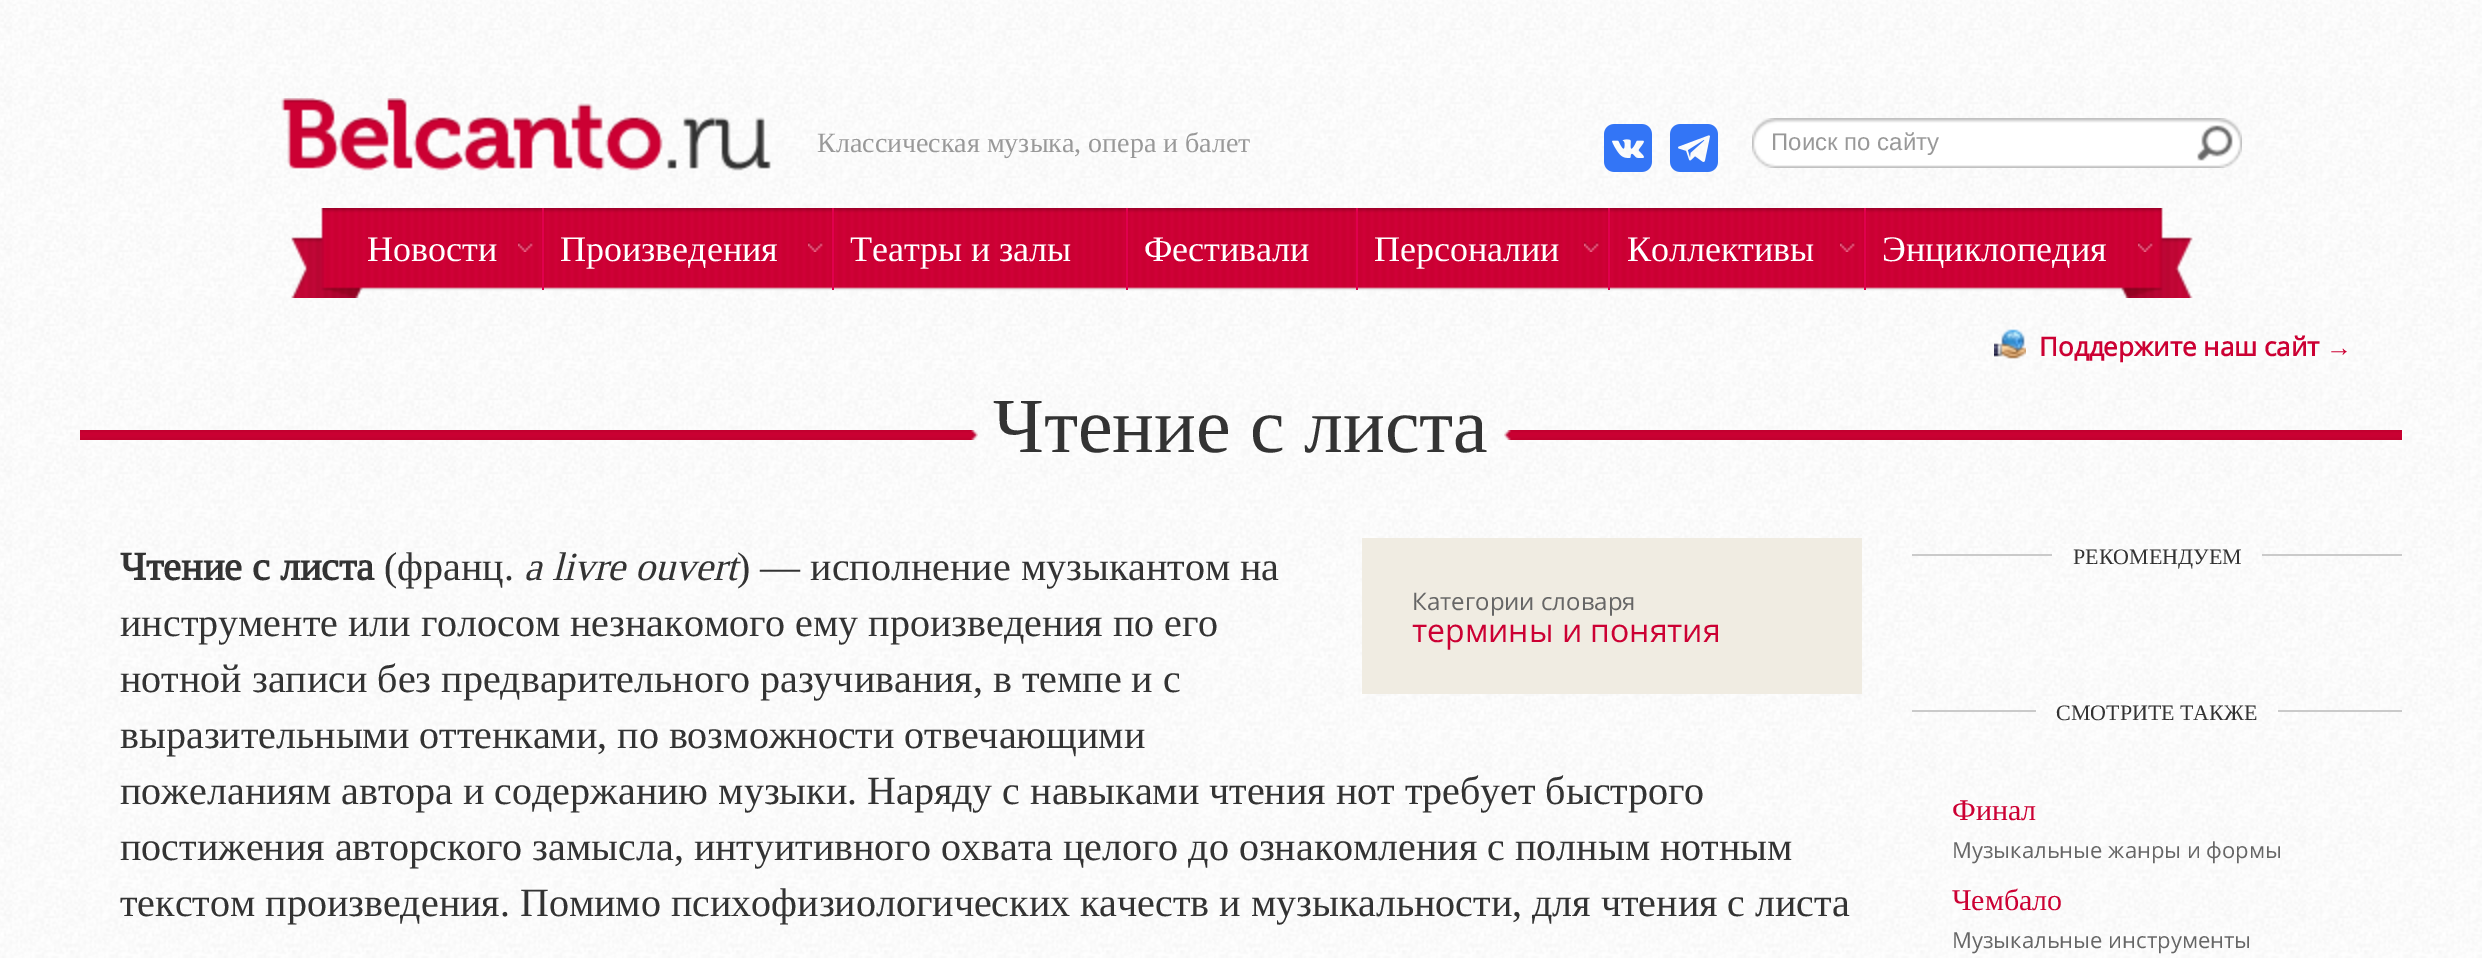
%!PS-Adobe-3.0
%%BoundingBox: 0 0 2482 958
%%LanguageLevel: 3
%%Pages: 1
%%EndComments
%%BeginProlog
/setink { 3 { 255 div 3 1 roll } repeat setrgbcolor } def
/usefont { [ exch dup neg 0 0 3 -1 roll 0 0 ] selectfont } def
/drawtext { setink usefont moveto show } def
/fillbox { setink rectfill } def
/drawimage { 5 dict begin { /h /w /y /x /name } { exch def } forall
  gsave x y translate w h scale
  w h 8 [w 0 0 h 0 0] name (r) file false 3 colorimage grestore end } def
%%EndProlog
%%BeginSetup
<< /PageSize [2482 958] >> setpagedevice
%%EndSetup
%%Page: 1 1
0 958 translate 1 -1 scale
4 setmiterlimit
0 0 2482 958 255 255 255 fillbox
(assets/img1.rgb) 0 0 2482 958 drawimage
(assets/img2.rgb) 281 98 490 73 drawimage
(Классическая музыка, опера и балет) 817 152 /Tinos-Regular 28 153 153 153 drawtext
(assets/img3.rgb) 1604 124 48 48 drawimage
(assets/img4.rgb) 1670 124 48 48 drawimage
(assets/img5.rgb) 1752 118 490 50 drawimage
(Поиск по сайту) 1771 150 /LiberationSans-Regular 24 153 153 153 drawtext
(assets/img6.rgb) 291 208 1902 90 drawimage
542 208 2 82 224 0 77 fillbox
(assets/img7.rgb) 518 242 15 10 drawimage
(Новости) 367 261 /Tinos-Regular 36 255 255 255 drawtext
832 208 2 82 224 0 77 fillbox
(assets/img8.rgb) 808 242 15 10 drawimage
(Произведения) 560 261 /Tinos-Regular 36 255 255 255 drawtext
1126 208 2 82 224 0 77 fillbox
(Театры и залы) 850 261 /Tinos-Regular 36 255 255 255 drawtext
1356 208 2 82 224 0 77 fillbox
(Фестивали) 1144 261 /Tinos-Regular 36 255 255 255 drawtext
1608 208 2 82 224 0 77 fillbox
(assets/img8.rgb) 1584 242 15 10 drawimage
(Персоналии) 1374 261 /Tinos-Regular 36 255 255 255 drawtext
1864 208 2 82 224 0 77 fillbox
(assets/img8.rgb) 1840 242 15 10 drawimage
(Коллективы) 1627 261 /Tinos-Regular 36 255 255 255 drawtext
(assets/img9.rgb) 2138 242 15 10 drawimage
(Энциклопедия) 1882 261 /Tinos-Regular 36 255 255 255 drawtext
(assets/img10.rgb) 1994 329 32 30 drawimage
(Поддержите наш сайт) 2039 356 /OpenSans-Bold 26 204 0 51 drawtext
(→) 2326 356 /LiberationSans-Bold 26 204 0 51 drawtext
(assets/img11.rgb) 984 382 514 86 drawimage
(assets/img12.rgb) 80 430 891 10 drawimage
(assets/img13.rgb) 971 430 7 10 drawimage
(Чтение с листа) 993 452 /Tinos-Regular 78 51 51 51 drawtext
(assets/img12.rgb) 1511 430 891 10 drawimage
(assets/img14.rgb) 1504 430 7 10 drawimage
(Чтение с листа) 120 580 /Tinos-Bold 40 51 51 51 drawtext
(\(франц.) 384 580 /Tinos-Regular 40 51 51 51 drawtext
(а livre ouvert) 524 580 /Tinos-Italic 40 51 51 51 drawtext
(\) — исполнение музыкантом на) 737 580 /Tinos-Regular 40 51 51 51 drawtext
(инструменте или голосом незнакомого ему произведения по его) 120 636 /Tinos-Regular 40 51 51 51 drawtext
(нотной записи без предварительного разучивания, в темпе и с) 120 692 /Tinos-Regular 40 51 51 51 drawtext
(выразительными оттенками, по возможности отвечающими) 120 748 /Tinos-Regular 40 51 51 51 drawtext
(пожеланиям автора и содержанию музыки. Наряду с навыками чтения нот требует быстрого) 120 804 /Tinos-Regular 40 51 51 51 drawtext
(постижения авторского замысла, интуитивного охвата целого до ознакомления с полным нотным) 120 860 /Tinos-Regular 40 51 51 51 drawtext
(текстом произведения. Помимо психофизиологических качеств и музыкальности, для чтения с листа) 120 916 /Tinos-Regular 40 51 51 51 drawtext
1362 538 500 156 240 236 226 fillbox
(Категории словаря) 1412 610 /OpenSans-Regular 24 102 102 102 drawtext
(термины и понятия) 1412 642 /OpenSans-Regular 32 204 0 51 drawtext
1912 554 490 2 202 202 202 fillbox
(assets/img15.rgb) 2052 544 210 24 drawimage
(РЕКОМЕНДУЕМ) 2073 564 /Tinos-Regular 22 51 51 51 drawtext
1912 710 490 2 202 202 202 fillbox
(assets/img16.rgb) 2036 700 242 24 drawimage
(СМОТРИТЕ ТАКЖЕ) 2056 720 /Tinos-Regular 22 51 51 51 drawtext
(Финал) 1952 820 /Tinos-Regular 30 204 0 51 drawtext
(Музыкальные жанры и формы) 1952 858 /OpenSans-Regular 22 102 102 102 drawtext
(Чембало) 1952 910 /Tinos-Regular 30 204 0 51 drawtext
(Музыкальные инструменты) 1952 948 /OpenSans-Regular 22 102 102 102 drawtext
showpage
%%EOF
